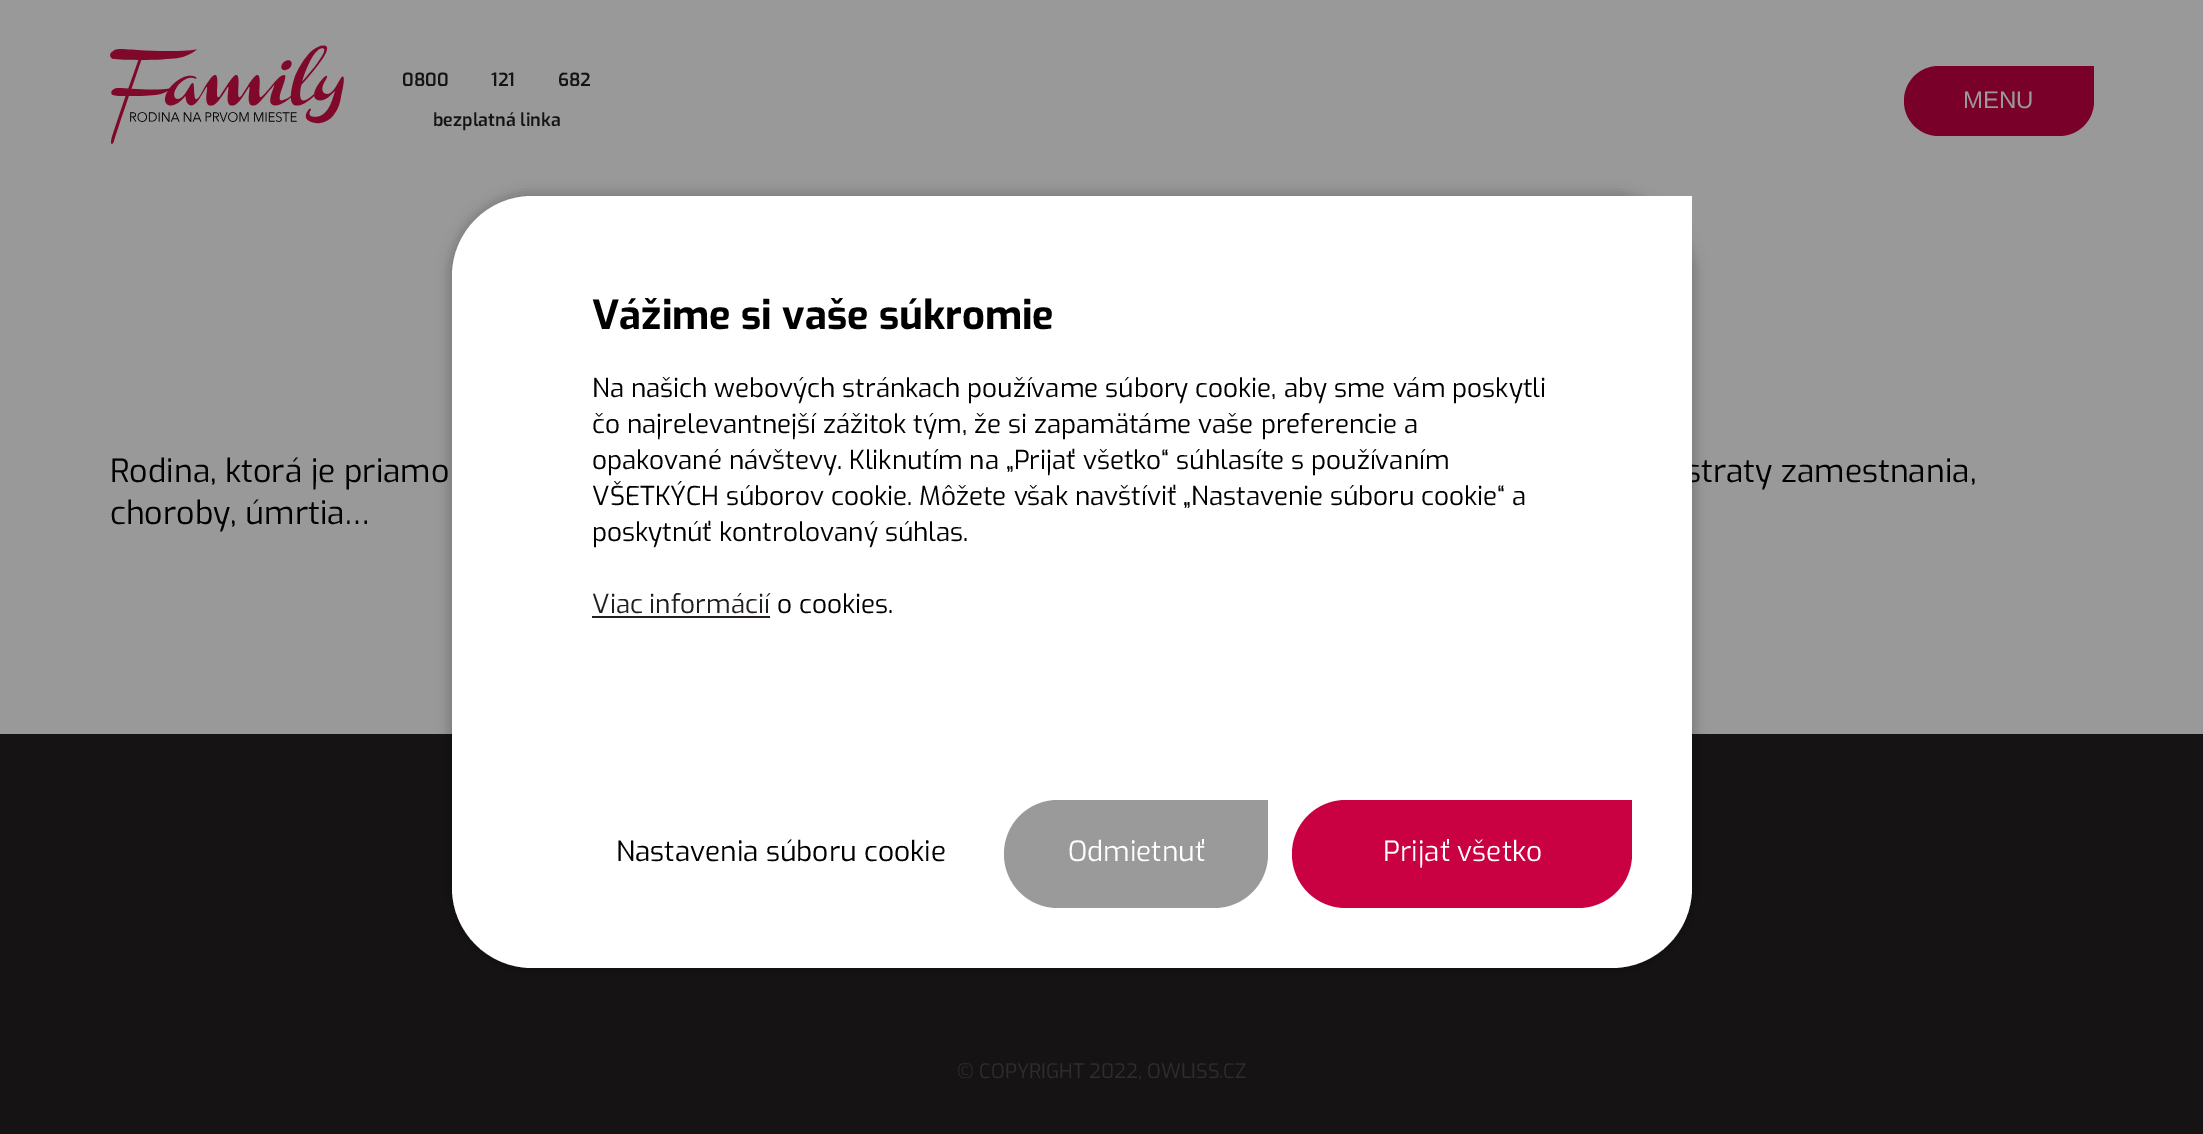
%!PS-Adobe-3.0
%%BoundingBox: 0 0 2203 1134
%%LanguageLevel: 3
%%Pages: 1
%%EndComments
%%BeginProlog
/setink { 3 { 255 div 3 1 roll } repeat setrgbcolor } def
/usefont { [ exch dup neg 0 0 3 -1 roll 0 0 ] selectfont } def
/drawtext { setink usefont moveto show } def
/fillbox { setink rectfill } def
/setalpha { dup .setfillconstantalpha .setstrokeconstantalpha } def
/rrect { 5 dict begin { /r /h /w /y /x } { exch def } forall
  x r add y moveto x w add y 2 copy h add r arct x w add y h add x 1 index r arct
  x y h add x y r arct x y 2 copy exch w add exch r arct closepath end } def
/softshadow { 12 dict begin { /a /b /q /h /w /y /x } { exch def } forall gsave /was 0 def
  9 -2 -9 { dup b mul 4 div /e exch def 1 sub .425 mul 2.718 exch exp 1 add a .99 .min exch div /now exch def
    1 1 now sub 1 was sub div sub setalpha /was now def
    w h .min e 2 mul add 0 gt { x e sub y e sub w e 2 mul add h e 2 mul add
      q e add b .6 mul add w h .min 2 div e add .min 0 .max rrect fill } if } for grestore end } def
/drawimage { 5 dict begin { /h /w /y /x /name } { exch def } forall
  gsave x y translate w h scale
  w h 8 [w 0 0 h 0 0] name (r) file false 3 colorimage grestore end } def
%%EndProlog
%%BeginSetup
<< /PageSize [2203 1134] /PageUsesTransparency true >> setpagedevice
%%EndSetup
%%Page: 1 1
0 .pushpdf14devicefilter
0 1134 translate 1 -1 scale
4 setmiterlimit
0 0 2203 1134 21 19 19 fillbox
0 0 2203 734 153 153 153 fillbox
(assets/img1.rgb) 110 45 234 99 drawimage
/Exo-SemiBold 18 usefont
21 19 19 setink
402 86 moveto 38 0 32 (0800 121 682) widthshow
(bezplatná linka) 433 126 /Exo-SemiBold 18 21 19 19 drawtext
121 0 40 setink
1939 66 moveto 2094 66 lineto 2094 101 lineto 2094 120.5 2078.5 136 2059 136 curveto 1939 136 lineto 1919.5 136 1904 120.5 1904 101 curveto 1904 81.5 1919.5 66 1939 66 curveto closepath fill
(MENU) 1963 108 /LiberationSans-Regular 24 153 153 153 drawtext
0 0 0 setink
448 192 1248 780 84 6 0.2 softshadow
(straty zamestnania,) 1685 482 /Exo-Regular 32 0 0 0 drawtext
255 255 255 setink
532 196 moveto 1692 196 lineto 1692 888 lineto 1692 932 1656 968 1612 968 curveto 532 968 lineto 488 968 452 932 452 888 curveto 452 276 lineto 452 232 488 196 532 196 curveto closepath fill
(Vážime si vaše súkromie) 592 329 /Exo-Bold 40 0 0 0 drawtext
(Na našich webových stránkach používame súbory cookie, aby sme vám poskytli) 592 397 /Exo-Regular 26 0 0 0 drawtext
(čo najrelevantnejší zážitok tým, že si zapamätáme vaše preferencie a) 592 433 /Exo-Regular 26 0 0 0 drawtext
(opakované návštevy. Kliknutím na „Prijať všetko“ súhlasíte s používaním) 592 469 /Exo-Regular 26 0 0 0 drawtext
(VŠETKÝCH súborov cookie. Môžete však navštíviť „Nastavenie súboru cookie“ a) 592 505 /Exo-Regular 26 0 0 0 drawtext
(poskytnúť kontrolovaný súhlas.) 592 541 /Exo-Regular 26 0 0 0 drawtext
(Viac informácií) 592 613 /Exo-Regular 26 35 31 32 drawtext
592 616 178 2 35 31 32 fillbox
(o cookies.) 777 613 /Exo-Regular 26 0 0 0 drawtext
(Nastavenia súboru cookie) 616 861 /Exo-Regular 28 0 0 0 drawtext
154 154 154 setink
1058 800 moveto 1268 800 lineto 1268 854 lineto 1268 884 1244 908 1214 908 curveto 1058 908 lineto 1028 908 1004 884 1004 854 curveto 1004 824 1028 800 1058 800 curveto closepath fill
(Odmietnuť) 1068 861 /Exo-Regular 28 255 255 255 drawtext
201 0 66 setink
1346 800 moveto 1632 800 lineto 1632 854 lineto 1632 884 1608 908 1578 908 curveto 1346 908 lineto 1316 908 1292 884 1292 854 curveto 1292 824 1316 800 1346 800 curveto closepath fill
(Prijať všetko) 1383 861 /Exo-Regular 28 255 255 255 drawtext
(Rodina, ktorá je priamo) 110 482 /Exo-Regular 32 0 0 0 drawtext
(choroby, úmrtia…) 110 524 /Exo-Regular 32 0 0 0 drawtext
(© COPYRIGHT 2022, OWLISS.CZ) 957 1078 /Exo-Regular 20 45 45 45 drawtext
.poppdf14devicefilter showpage
%%EOF
